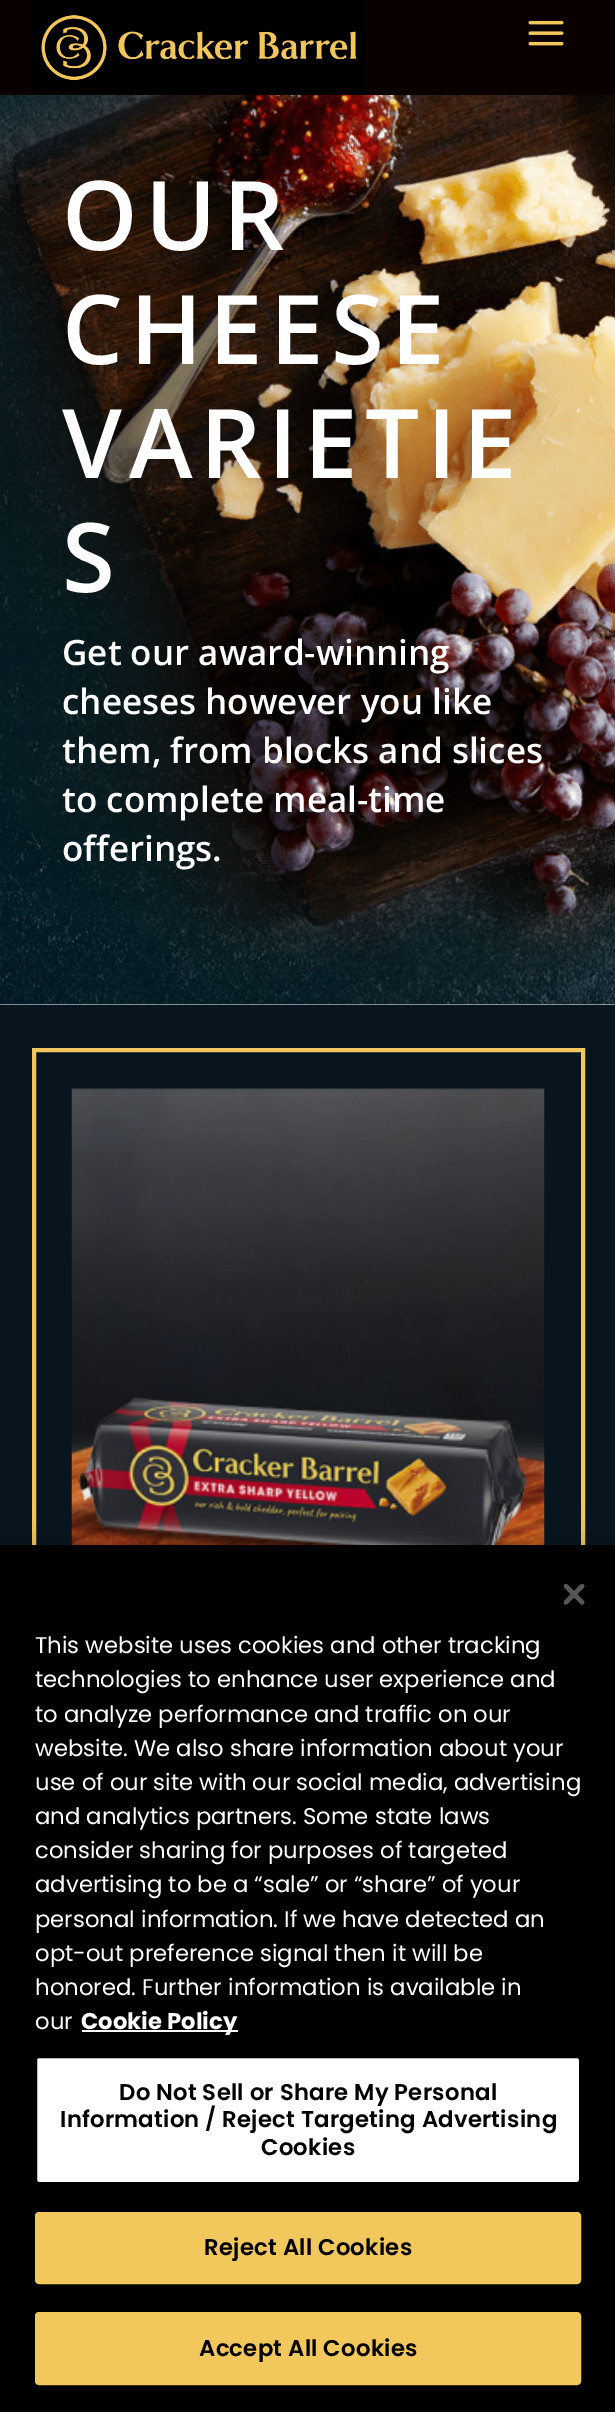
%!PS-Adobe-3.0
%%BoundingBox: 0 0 615 2412
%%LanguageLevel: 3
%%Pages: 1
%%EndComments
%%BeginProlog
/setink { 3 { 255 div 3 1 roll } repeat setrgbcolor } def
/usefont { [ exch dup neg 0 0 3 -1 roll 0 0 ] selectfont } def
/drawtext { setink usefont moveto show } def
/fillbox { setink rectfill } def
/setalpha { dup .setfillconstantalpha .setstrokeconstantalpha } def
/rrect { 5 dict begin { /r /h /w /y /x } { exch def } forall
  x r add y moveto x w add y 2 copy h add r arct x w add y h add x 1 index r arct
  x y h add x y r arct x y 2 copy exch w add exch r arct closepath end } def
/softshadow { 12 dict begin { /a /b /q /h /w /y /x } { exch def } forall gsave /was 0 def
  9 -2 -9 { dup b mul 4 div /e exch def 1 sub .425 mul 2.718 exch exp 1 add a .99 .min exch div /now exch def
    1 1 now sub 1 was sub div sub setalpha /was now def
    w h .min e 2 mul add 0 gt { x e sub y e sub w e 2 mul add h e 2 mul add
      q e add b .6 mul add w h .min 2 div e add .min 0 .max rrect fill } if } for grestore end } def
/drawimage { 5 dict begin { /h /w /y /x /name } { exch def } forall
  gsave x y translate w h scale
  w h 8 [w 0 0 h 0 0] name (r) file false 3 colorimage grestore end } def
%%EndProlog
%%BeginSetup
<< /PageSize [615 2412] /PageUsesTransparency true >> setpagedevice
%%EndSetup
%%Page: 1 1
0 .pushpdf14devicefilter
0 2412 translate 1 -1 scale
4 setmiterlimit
0 0 615 2412 255 255 255 fillbox
0 0 615 95 10 0 0 fillbox
(assets/img1.rgb) 32 0 334 94 drawimage
(assets/img2.rgb) 528 20 36 26 drawimage
(assets/img3.rgb) 0 95 615 910 drawimage
/OpenSans-SemiBold 96.25 usefont
255 255 255 setink
62 250 moveto 7 0 (OUR) ashow
62 364 moveto 7 0 (CHEESE) ashow
62 478 moveto 7 0 (VARIETIE) ashow
62 592 moveto 7 0 (S) ashow
(Get our award-winning) 62 665 /OpenSans-SemiBold 35 255 255 255 drawtext
(cheeses however you like) 62 714 /OpenSans-SemiBold 35 255 255 255 drawtext
(them, from blocks and slices) 62 763 /OpenSans-SemiBold 35 255 255 255 drawtext
(to complete meal-time) 62 812 /OpenSans-SemiBold 35 255 255 255 drawtext
(offerings.) 62 861 /OpenSans-SemiBold 35 255 255 255 drawtext
0 1005 615 540 8 21 30 fillbox
242 199 92 setink
4 setlinewidth
34 1050 549 889 rectstroke
(assets/img4.rgb) 71 1088 474 457 drawimage
0 0 0 setink
0 1545 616 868 0 16 0.2 softshadow
0 1545 615 867 0 0 0 fillbox
(assets/img5.rgb) 564 1584 21 21 drawimage
(This website uses cookies and other tracking) 35 1653 /Poppins-Regular 22.75 255 255 255 drawtext
(technologies to enhance user experience and) 35 1687 /Poppins-Regular 22.75 255 255 255 drawtext
(to analyze performance and traffic on our) 35 1722 /Poppins-Regular 22.75 255 255 255 drawtext
(website. We also share information about your) 35 1756 /Poppins-Regular 22.75 255 255 255 drawtext
(use of our site with our social media, advertising) 35 1790 /Poppins-Regular 22.75 255 255 255 drawtext
(and analytics partners. Some state laws) 35 1824 /Poppins-Regular 22.75 255 255 255 drawtext
(consider sharing for purposes of targeted) 35 1858 /Poppins-Regular 22.75 255 255 255 drawtext
(advertising to be a “sale” or “share” of your) 35 1892 /Poppins-Regular 22.75 255 255 255 drawtext
(personal information. If we have detected an) 35 1927 /Poppins-Regular 22.75 255 255 255 drawtext
(opt-out preference signal then it will be) 35 1961 /Poppins-Regular 22.75 255 255 255 drawtext
(honored. Further information is available in) 35 1995 /Poppins-Regular 22.75 255 255 255 drawtext
(our) 35 2029 /Poppins-Regular 22.75 255 255 255 drawtext
82 2030 156 2 255 255 255 fillbox
(Cookie Policy) 81 2029 /Poppins-Bold 22.75 255 255 255 drawtext
36 2057 544 126 3 rrect gsave fill grestore
0 0 0 setink
2 setlinewidth
stroke
/Poppins-SemiBold 22.75 usefont
119 2100 moveto 0.25 0 (Do Not Sell or Share My Personal) ashow
60 2127 moveto 0.25 0 (Information / Reject Targeting Advertising) ashow
261 2155 moveto 0.25 0 (Cookies) ashow
242 199 92 setink
36 2213 544 70 3 rrect gsave fill grestore
stroke
0 0 0 setink
204 2255 moveto 0.25 0 (Reject All Cookies) ashow
242 199 92 setink
36 2313 544 71 3 rrect gsave fill grestore
stroke
0 0 0 setink
199 2356 moveto 0.25 0 (Accept All Cookies) ashow
.poppdf14devicefilter showpage
%%EOF
